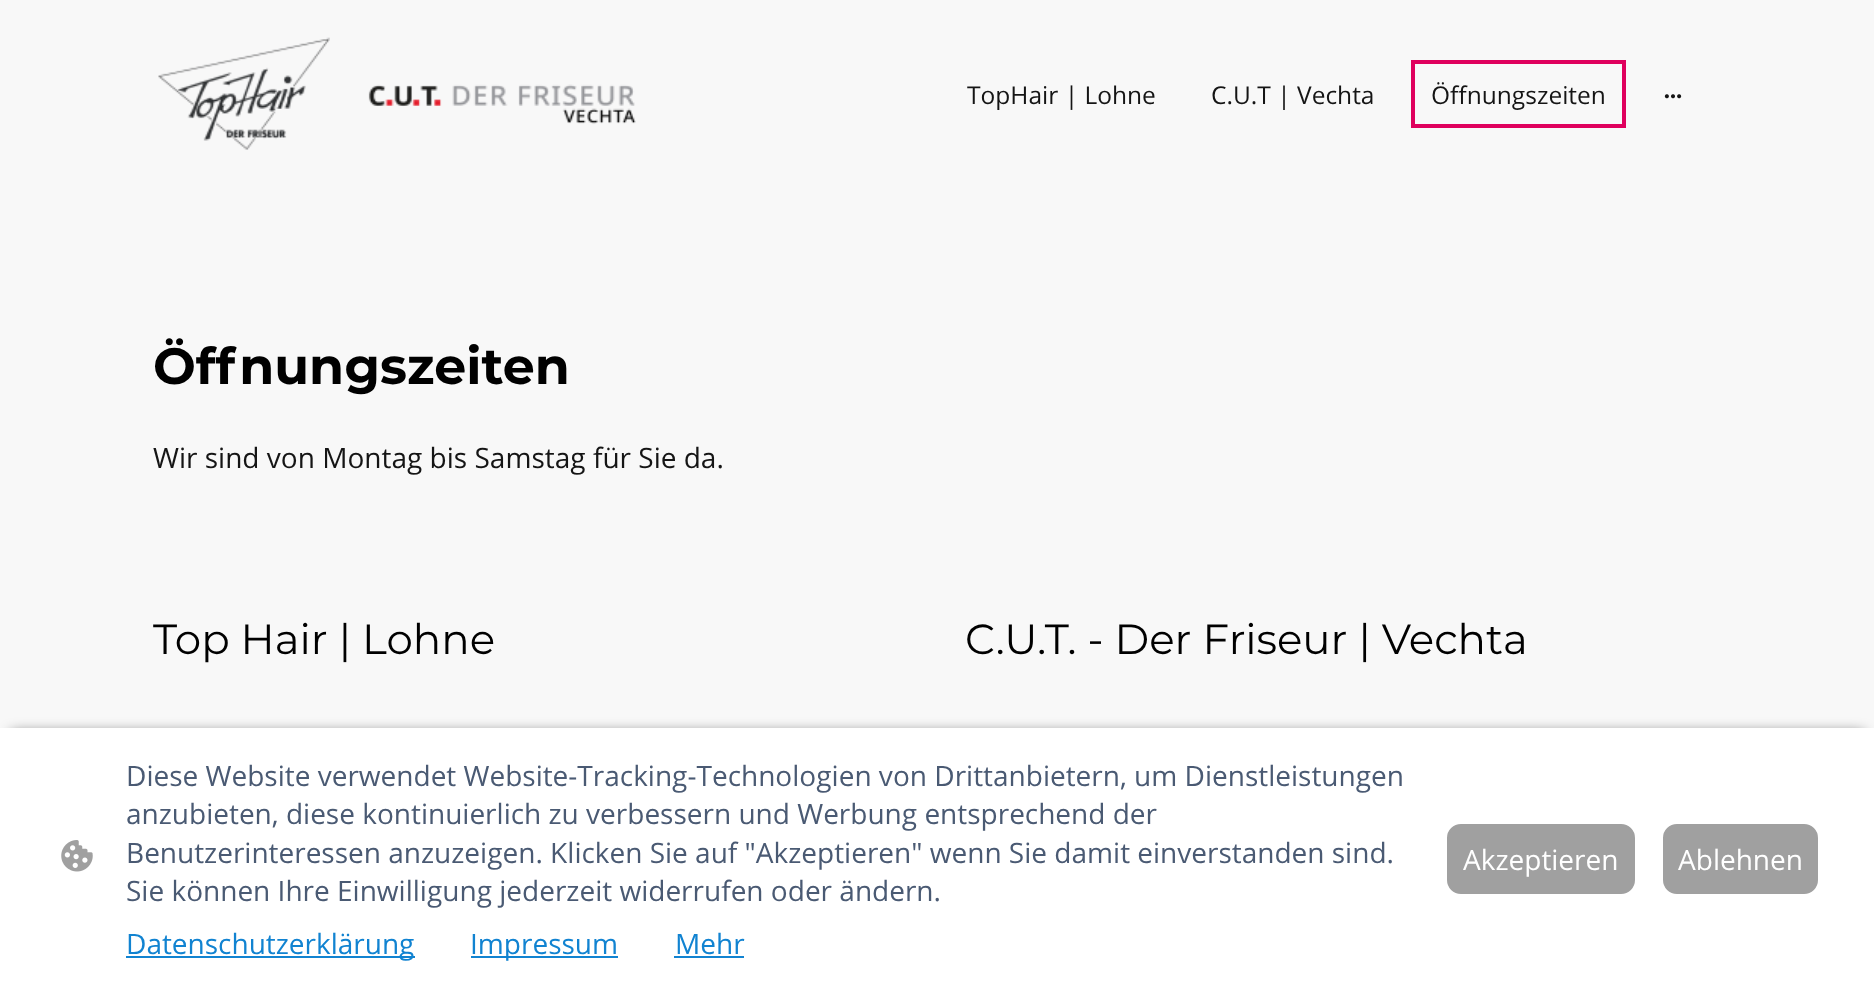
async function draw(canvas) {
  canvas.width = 1874
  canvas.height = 989
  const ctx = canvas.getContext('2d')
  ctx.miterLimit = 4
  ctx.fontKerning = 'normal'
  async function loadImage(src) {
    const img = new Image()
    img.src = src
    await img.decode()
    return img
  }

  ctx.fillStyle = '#f8f8f8'
  ctx.fillRect(0, 0, 1874, 989)
  ctx.drawImage(await loadImage('image0.png'), 158, 37, 478, 113)
  ctx.font = '24.5px Open Sans'
  ctx.fillStyle = '#151515'
  ctx.fillText('TopHair | Lohne', 967, 104)
  ctx.fillText('C.U.T | Vechta', 1211, 104)
  ctx.strokeStyle = '#df005d'
  ctx.lineWidth = 4
  ctx.strokeRect(1413, 62, 211, 64)
  ctx.fillText('Öffnungszeiten', 1431, 104)
  ctx.drawImage(await loadImage('image1.png'), 1664, 94, 18, 5)
  ctx.font = 'bold 50.75px Montserrat'
  ctx.fillStyle = '#000'
  ctx.fillText('Öffnungszeiten', 153, 384)
  ctx.font = '28px Open Sans'
  ctx.fillStyle = '#151515'
  ctx.fillText('Wir sind von Montag bis Samstag für Sie da.', 153, 468)
  ctx.font = '42px Montserrat'
  ctx.fillStyle = '#000'
  ctx.fillText('Top Hair | Lohne', 153, 654)
  ctx.fillText('C.U.T. - Der Friseur | Vechta', 965, 654)
  ctx.fillStyle = '#000000a1'
  ctx.filter = 'blur(7px)'
  ctx.beginPath()
  ctx.rect(11, 733, 1853, 242)
  ctx.fill()
  ctx.filter = 'none'
  ctx.fillStyle = '#fff'
  ctx.fillRect(0, 728, 1874, 261)
  ctx.drawImage(await loadImage('image2.png'), 61, 840, 32, 32)
  ctx.font = '28px Open Sans'
  ctx.fillStyle = '#4a5a73'
  ctx.fillText('Diese Website verwendet Website-Tracking-Technologien von Drittanbietern, um Dienstleistungen', 126, 786)
  ctx.fillText('anzubieten, diese kontinuierlich zu verbessern und Werbung entsprechend der', 126, 824)
  ctx.fillText('Benutzerinteressen anzuzeigen. Klicken Sie auf "Akzeptieren" wenn Sie damit einverstanden sind.', 126, 863)
  ctx.fillText('Sie können Ihre Einwilligung jederzeit widerrufen oder ändern.', 126, 901)
  ctx.fillStyle = '#1183d1'
  ctx.fillRect(126, 956, 289, 2)
  ctx.fillText('Datenschutzerklärung', 126, 954)
  ctx.fillRect(471, 956, 147, 2)
  ctx.fillText('Impressum', 470, 954)
  ctx.fillText('Mehr', 675, 954)
  ctx.fillRect(674, 956, 70, 2)
  ctx.fillStyle = '#a0a0a0'
  ctx.beginPath()
  ctx.roundRect(1448, 825, 186, 68, 13)
  ctx.fill()
  ctx.strokeStyle = '#a0a0a0'
  ctx.lineWidth = 2
  ctx.stroke()
  ctx.fillStyle = '#fff'
  ctx.fillText('Akzeptieren', 1463, 870)
  ctx.fillStyle = '#a0a0a0'
  ctx.beginPath()
  ctx.roundRect(1664, 825, 153, 68, 13)
  ctx.fill()
  ctx.stroke()
  ctx.fillStyle = '#fff'
  ctx.fillText('Ablehnen', 1678, 870)
}

draw(document.querySelector('canvas'))
